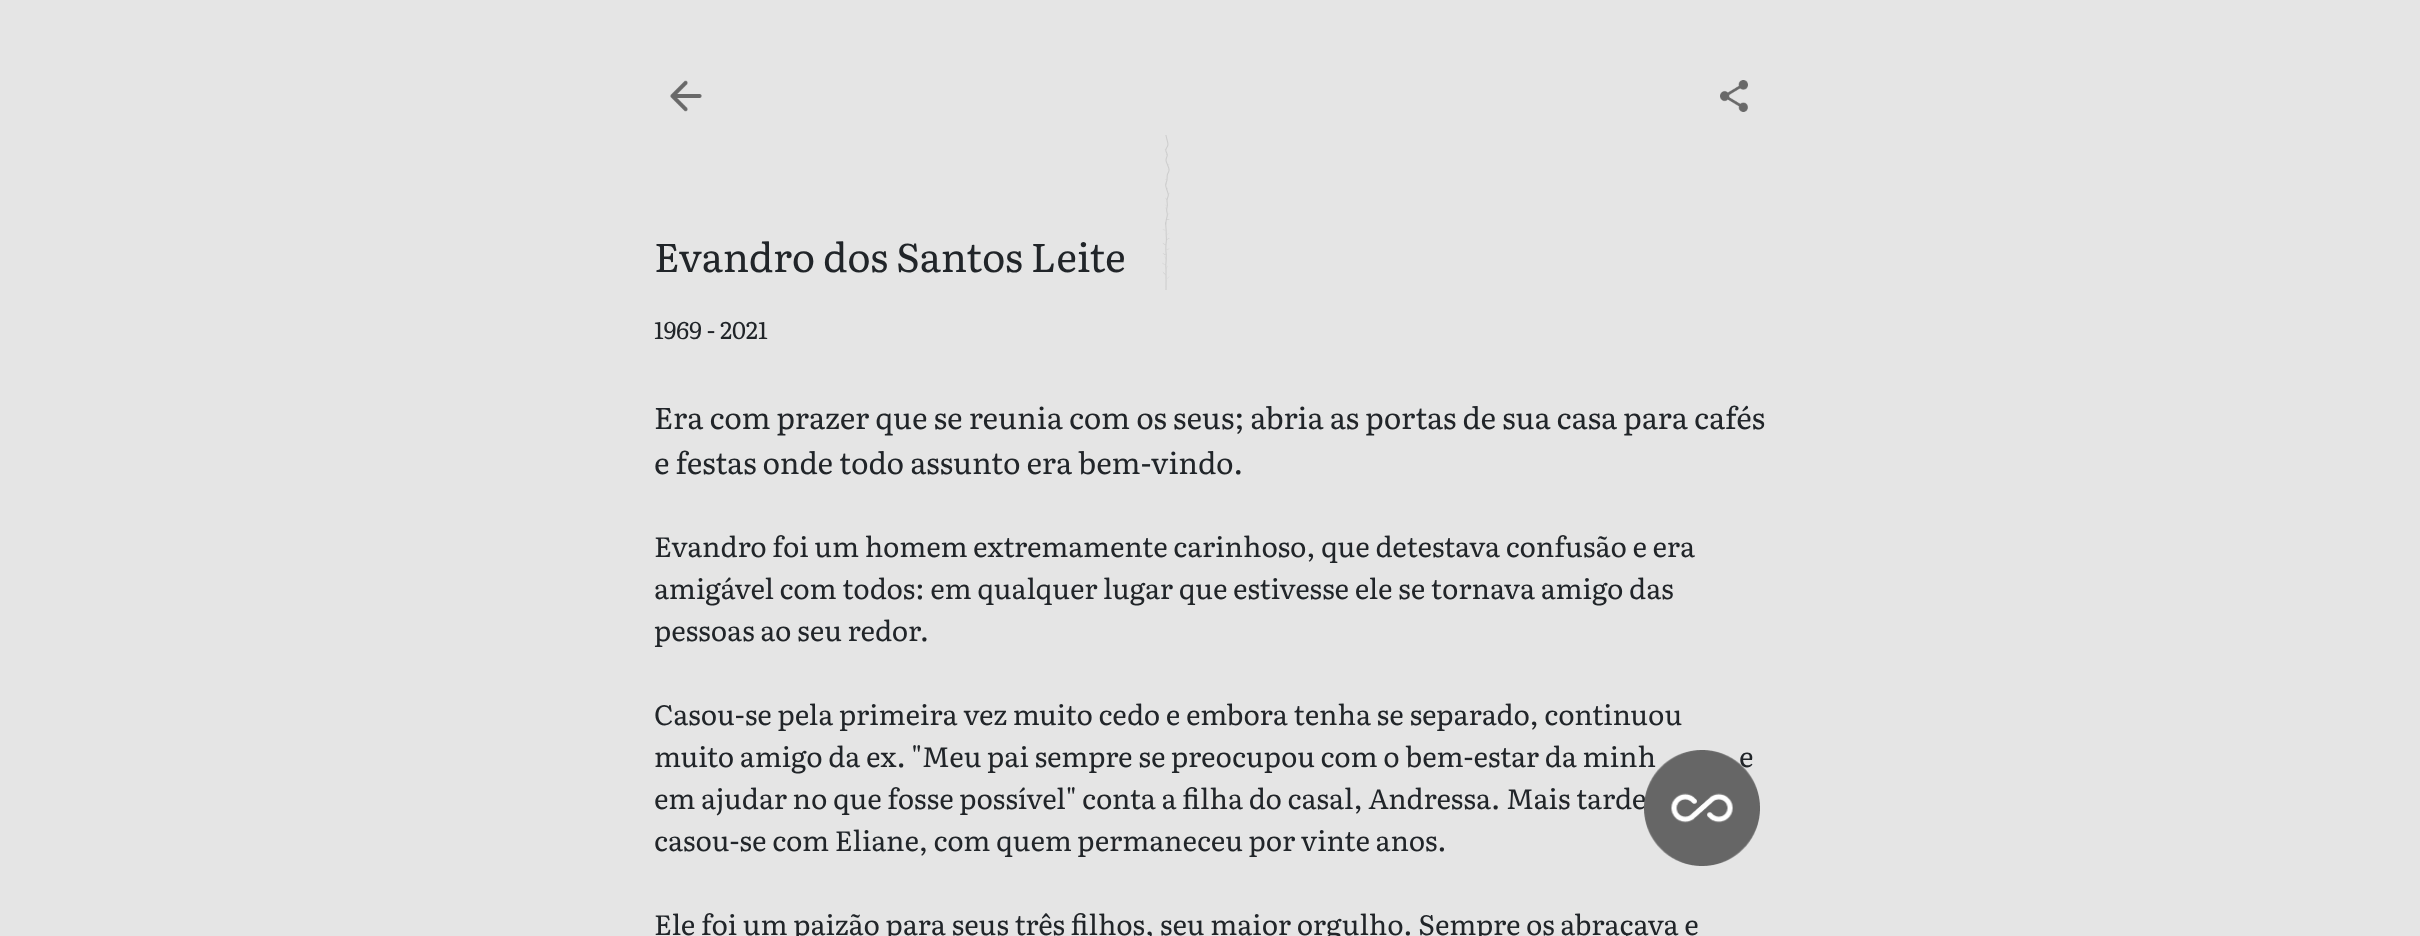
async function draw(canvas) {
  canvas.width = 2420
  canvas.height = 936
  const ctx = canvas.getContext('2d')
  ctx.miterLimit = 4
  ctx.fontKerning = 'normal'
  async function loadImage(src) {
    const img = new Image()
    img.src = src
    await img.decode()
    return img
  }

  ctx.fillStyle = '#e5e5e5'
  ctx.fillRect(0, 0, 2420, 936)
  ctx.drawImage(await loadImage('image0.png'), 670, 80, 32, 32)
  ctx.drawImage(await loadImage('image1.png'), 1720, 80, 28, 32)
  ctx.font = '40px Literata'
  ctx.fillStyle = '#212529'
  ctx.fillText('Evandro dos Santos Leite', 654, 272)
  ctx.drawImage(await loadImage('image2.png'), 1162, 135, 8, 155)
  ctx.font = '24px Literata'
  ctx.fillText('1969 - 2021', 654, 339)
  ctx.font = '30px Literata'
  ctx.fillText('Era com prazer que se reunia com os seus; abria as portas de sua casa para cafés', 654, 429)
  ctx.fillText('e festas onde todo assunto era bem-vindo.', 654, 474)
  ctx.font = '28px Literata'
  ctx.fillText('Evandro foi um homem extremamente carinhoso, que detestava confusão e era', 654, 557)
  ctx.fillText('amigável com todos: em qualquer lugar que estivesse ele se tornava amigo das', 654, 599)
  ctx.fillText('pessoas ao seu redor.', 654, 641)
  ctx.fillText('Casou-se pela primeira vez muito cedo e embora tenha se separado, continuou', 654, 725)
  ctx.fillText('muito amigo da ex. "Meu pai sempre se preocupou com o bem-estar da minh', 654, 767)
  ctx.fillText('e', 1739, 767)
  ctx.fillText('em ajudar no que fosse possível" conta a filha do casal, Andressa. Mais tarde', 654, 809)
  ctx.fillText('casou-se com Eliane, com quem permaneceu por vinte anos.', 654, 851)
  ctx.fillText('Ele foi um paizão para seus três filhos, seu maior orgulho. Sempre os abraçava e', 654, 935)
  ctx.drawImage(await loadImage('image3.png'), 1644, 750, 116, 116)
}

draw(document.querySelector('canvas'))
